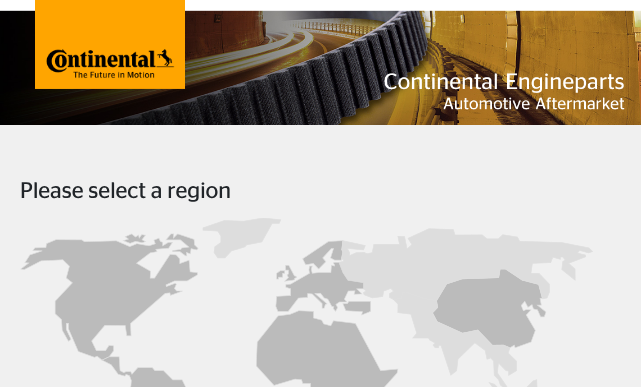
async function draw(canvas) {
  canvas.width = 641
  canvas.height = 387
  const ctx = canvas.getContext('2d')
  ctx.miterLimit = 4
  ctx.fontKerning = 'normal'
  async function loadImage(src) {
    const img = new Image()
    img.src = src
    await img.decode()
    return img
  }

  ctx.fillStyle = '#f0f0f0'
  ctx.fillRect(0, 0, 641, 387)
  ctx.drawImage(await loadImage('image0.png'), 0, 0, 641, 125)
  ctx.drawImage(await loadImage('image1.png'), 35, 0, 150, 89)
  ctx.font = '22.5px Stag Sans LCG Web'
  ctx.fillStyle = '#212529'
  ctx.fillText('Please select a region', 20, 198)
  ctx.drawImage(await loadImage('image2.png'), 20, 218, 573, 169)
}

draw(document.querySelector('canvas'))
